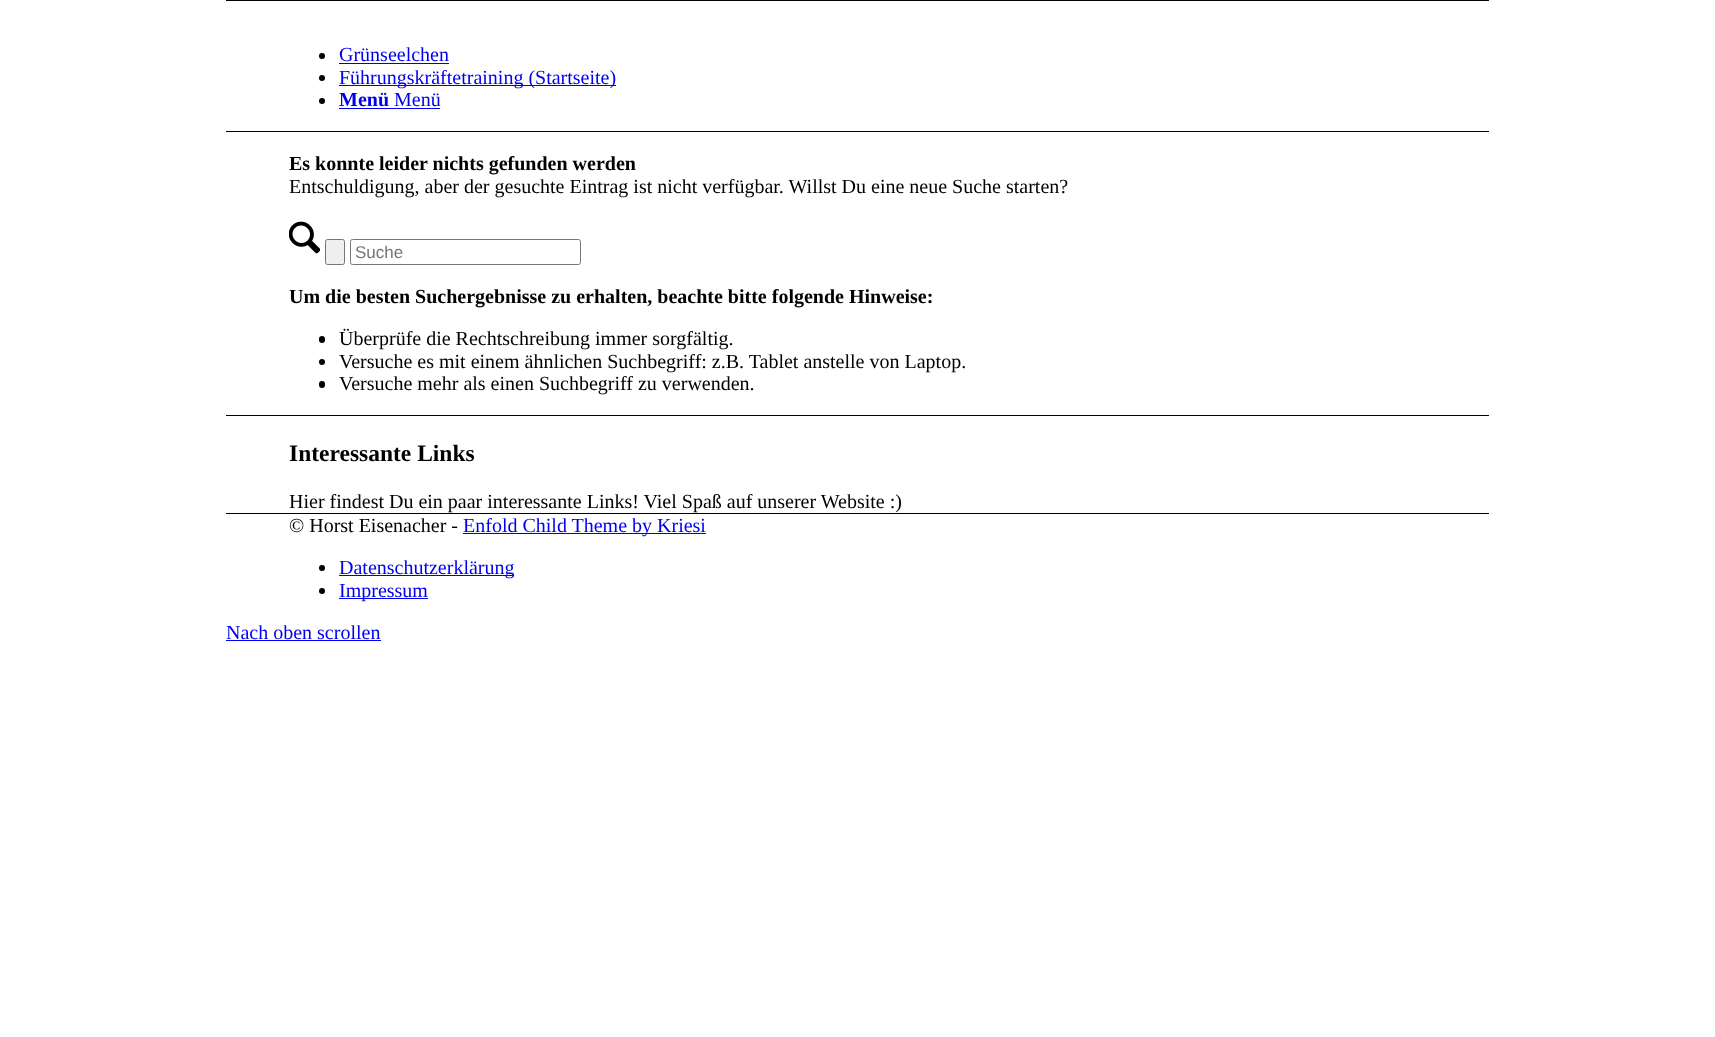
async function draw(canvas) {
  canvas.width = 1715
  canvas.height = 1037
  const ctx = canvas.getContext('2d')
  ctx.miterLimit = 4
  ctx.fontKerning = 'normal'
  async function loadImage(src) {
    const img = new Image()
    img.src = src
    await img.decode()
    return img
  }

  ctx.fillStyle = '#fff'
  ctx.fillRect(0, 0, 1715, 1037)
  ctx.fillStyle = '#000'
  ctx.fillRect(226, 0, 1263, 1)
  ctx.beginPath()
  ctx.arc(322, 56, 3, 0, 2 * Math.PI)
  ctx.fill()
  ctx.font = '20px Liberation Serif'
  ctx.fillStyle = '#00e'
  ctx.fillText('Grünseelchen', 339, 61)
  ctx.fillRect(339, 63, 110, 1)
  ctx.fillStyle = '#000'
  ctx.beginPath()
  ctx.arc(322, 78, 3, 0, 2 * Math.PI)
  ctx.fill()
  ctx.fillStyle = '#00e'
  ctx.fillRect(339, 85, 277, 1)
  ctx.fillText('Führungskräftetraining (Startseite)', 339, 84)
  ctx.fillStyle = '#000'
  ctx.beginPath()
  ctx.arc(322, 101, 3, 0, 2 * Math.PI)
  ctx.fill()
  ctx.font = 'bold 20px Liberation Serif'
  ctx.fillStyle = '#00e'
  ctx.fillText('Menü', 339, 106)
  ctx.fillRect(339, 108, 101, 1)
  ctx.font = '20px Liberation Serif'
  ctx.fillText('Menü', 394, 106)
  ctx.fillStyle = '#000'
  ctx.fillRect(226, 131, 1263, 1)
  ctx.font = 'bold 20px Liberation Serif'
  ctx.fillText('Es konnte leider nichts gefunden werden', 289, 170)
  ctx.font = '20px Liberation Serif'
  ctx.fillText('Entschuldigung, aber der gesuchte Eintrag ist nicht verfügbar. Willst Du eine neue Suche starten?', 289, 193)
  ctx.drawImage(await loadImage('image0.png'), 289, 221, 31, 33)
  ctx.fillStyle = '#efefef'
  ctx.beginPath()
  ctx.roundRect(325.5, 239.5, 19, 25, 2)
  ctx.fill()
  ctx.strokeStyle = '#767676'
  ctx.stroke()
  ctx.beginPath()
  ctx.roundRect(350.5, 239.5, 230, 25, 2)
  ctx.stroke()
  ctx.font = '17px Liberation Sans'
  ctx.fillStyle = '#757575'
  ctx.fillText('Suche', 355, 258)
  ctx.font = 'bold 20px Liberation Serif'
  ctx.fillStyle = '#000'
  ctx.fillText('Um die besten Suchergebnisse zu erhalten, beachte bitte folgende Hinweise:', 289, 303)
  ctx.beginPath()
  ctx.roundRect(319, 336, 6, 7, 3)
  ctx.fill()
  ctx.font = '20px Liberation Serif'
  ctx.fillText('Überprüfe die Rechtschreibung immer sorgfältig.', 339, 345)
  ctx.beginPath()
  ctx.arc(322, 362, 3, 0, 2 * Math.PI)
  ctx.fill()
  ctx.fillText('Versuche es mit einem ähnlichen Suchbegriff: z.B. Tablet anstelle von Laptop.', 339, 368)
  ctx.beginPath()
  ctx.roundRect(319, 381, 6, 7, 3)
  ctx.fill()
  ctx.fillText('Versuche mehr als einen Suchbegriff zu verwenden.', 339, 390)
  ctx.fillRect(226, 415, 1263, 1)
  ctx.font = 'bold 23.5px Liberation Serif'
  ctx.fillText('Interessante Links', 289, 461)
  ctx.font = '20px Liberation Serif'
  ctx.fillText('Hier findest Du ein paar interessante Links! Viel Spaß auf unserer Website :)', 289, 508)
  ctx.fillRect(226, 513, 1263, 1)
  ctx.fillText('© Horst Eisenacher -', 289, 532)
  ctx.fillStyle = '#00e'
  ctx.fillRect(463, 533, 243, 1)
  ctx.fillText('Enfold Child Theme by Kriesi', 463, 532)
  ctx.fillStyle = '#000'
  ctx.beginPath()
  ctx.arc(322, 568, 3, 0, 2 * Math.PI)
  ctx.fill()
  ctx.fillStyle = '#00e'
  ctx.fillRect(339, 575, 175, 1)
  ctx.fillText('Datenschutzerklärung', 339, 574)
  ctx.fillStyle = '#000'
  ctx.beginPath()
  ctx.arc(322, 591, 3, 0, 2 * Math.PI)
  ctx.fill()
  ctx.fillStyle = '#00e'
  ctx.fillRect(339, 598, 89, 1)
  ctx.fillText('Impressum', 339, 597)
  ctx.fillText('Nach oben scrollen', 226, 639)
  ctx.fillRect(226, 640, 155, 1)
}

draw(document.querySelector('canvas'))
